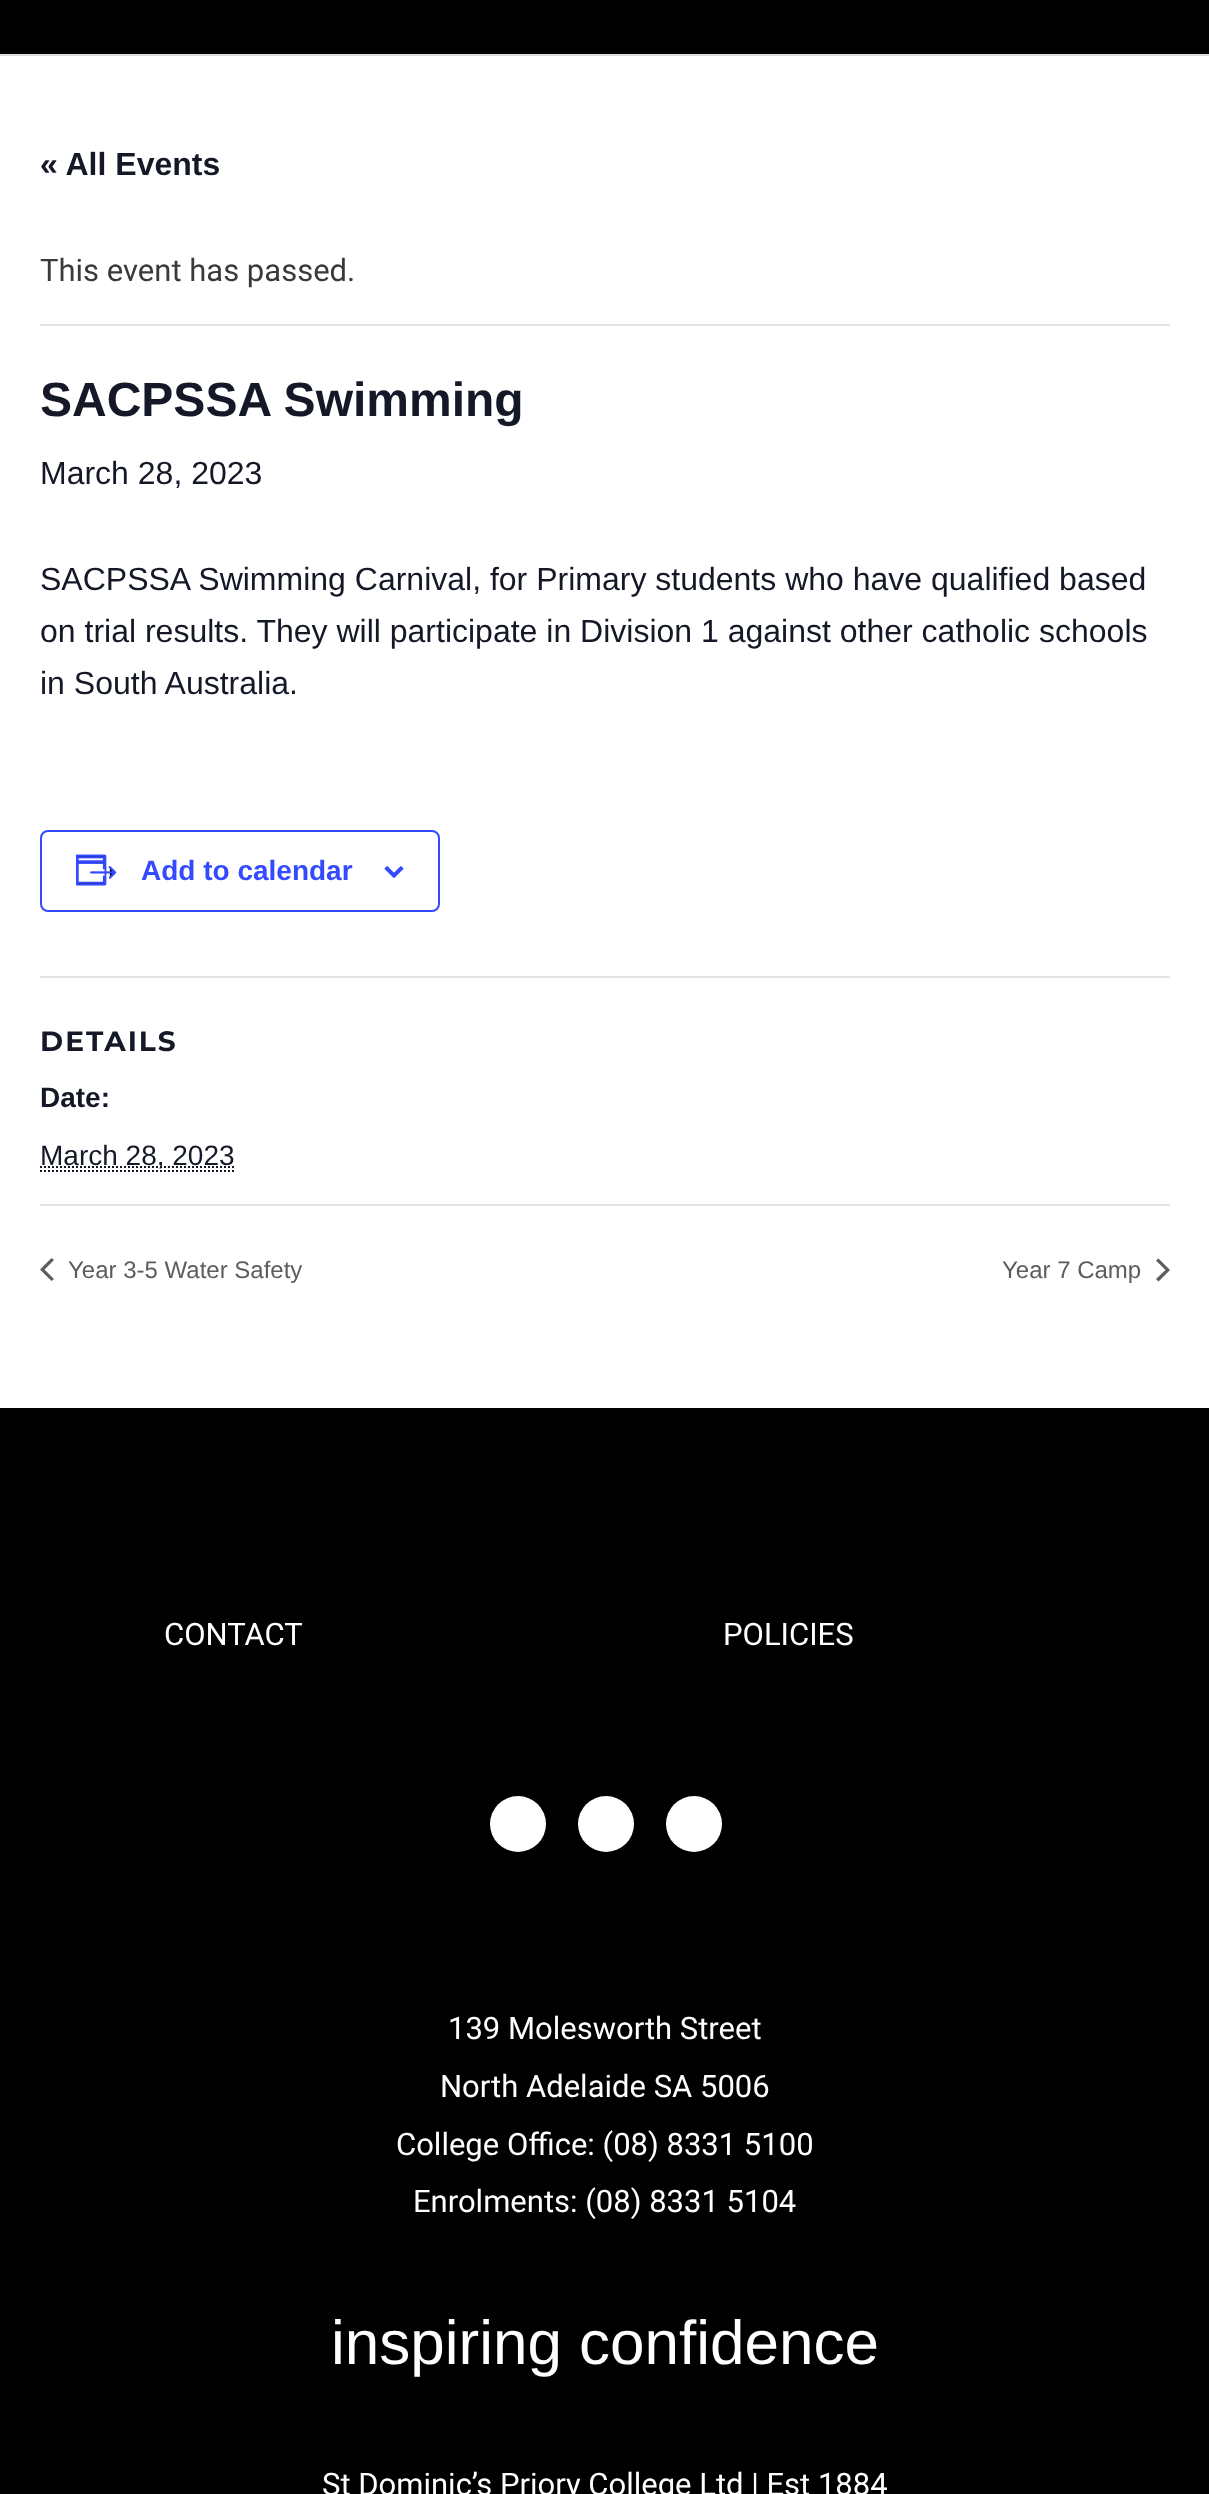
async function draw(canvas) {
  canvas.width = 1209
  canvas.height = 2494
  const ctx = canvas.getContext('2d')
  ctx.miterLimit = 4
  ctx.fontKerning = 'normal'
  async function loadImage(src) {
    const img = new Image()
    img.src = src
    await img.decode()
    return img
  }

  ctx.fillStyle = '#fff'
  ctx.fillRect(0, 0, 1209, 2494)
  ctx.fillStyle = '#000'
  ctx.fillRect(0, 0, 1209, 54)
  ctx.fillStyle = '#ddd'
  ctx.fillRect(0, 54, 1209, 2)
  ctx.font = 'bold 32px Liberation Sans'
  ctx.fillStyle = '#141827'
  ctx.fillText('« All Events', 40, 175)
  ctx.fillStyle = '#e4e4e4'
  ctx.fillRect(40, 324, 1130, 2)
  ctx.font = '31px Roboto'
  ctx.fillStyle = '#3a3a3a'
  ctx.fillText('This event has passed.', 40, 281)
  ctx.font = 'bold 48px Liberation Sans'
  ctx.fillStyle = '#141827'
  ctx.fillText('SACPSSA Swimming', 40, 416)
  ctx.font = '32px Liberation Sans'
  ctx.fillText('March 28, 2023', 40, 484)
  ctx.fillText('SACPSSA Swimming Carnival, for Primary students who have qualified based', 40, 590)
  ctx.fillText('on trial results. They will participate in Division 1 against other catholic schools', 40, 642)
  ctx.fillText('in South Australia.', 40, 694)
  ctx.beginPath()
  ctx.roundRect(41, 831, 398, 80, 7)
  ctx.strokeStyle = '#334aff'
  ctx.lineWidth = 2
  ctx.stroke()
  ctx.drawImage(await loadImage('image0.png'), 76, 854, 41, 32)
  ctx.font = 'bold 28px Liberation Sans'
  ctx.fillStyle = '#334aff'
  ctx.fillText('Add to calendar', 141, 880)
  ctx.drawImage(await loadImage('image1.png'), 384, 866, 20, 12)
  ctx.fillStyle = '#e4e4e4'
  ctx.fillRect(40, 976, 1130, 2)
  ctx.letterSpacing = '2px'
  ctx.font = 'bold 28px Montserrat'
  ctx.fillStyle = '#141827'
  ctx.fillText('DETAILS', 40, 1051)
  ctx.letterSpacing = '0px'
  ctx.font = 'bold 28px Liberation Sans'
  ctx.fillText('Date:', 40, 1107)
  ctx.beginPath()
  ctx.moveTo(40, 1167)
  ctx.lineTo(234.5, 1167)
  ctx.strokeStyle = '#141827'
  ctx.setLineDash([2, 2])
  ctx.stroke()
  ctx.font = '28px Liberation Sans'
  ctx.fillText('March 28, 2023', 40, 1165)
  ctx.beginPath()
  ctx.moveTo(40, 1171)
  ctx.lineTo(234, 1171)
  ctx.stroke()
  ctx.fillStyle = '#e4e4e4'
  ctx.fillRect(40, 1204, 1130, 2)
  ctx.fillStyle = '#5d5d5d'
  ctx.beginPath()
  ctx.moveTo(54, 1279)
  ctx.lineTo(51.5, 1281)
  ctx.lineTo(40, 1269.5)
  ctx.lineTo(51.5, 1258)
  ctx.lineTo(54, 1260)
  ctx.lineTo(44.5, 1269.5)
  ctx.closePath()
  ctx.fill()
  ctx.font = '24px Liberation Sans'
  ctx.fillText('Year 3-5 Water Safety', 68, 1278)
  ctx.fillText('Year 7 Camp', 1002, 1278)
  ctx.beginPath()
  ctx.moveTo(1156, 1260.5)
  ctx.lineTo(1158.5, 1258.5)
  ctx.lineTo(1170, 1270)
  ctx.lineTo(1158.5, 1281.5)
  ctx.lineTo(1156, 1279)
  ctx.lineTo(1165.5, 1270)
  ctx.closePath()
  ctx.fill()
  ctx.fillStyle = '#000'
  ctx.fillRect(0, 1408, 1209, 1086)
  ctx.font = '31px Roboto'
  ctx.fillStyle = '#fff'
  ctx.fillText('CONTACT', 164, 1645)
  ctx.fillText('POLICIES', 723, 1645)
  ctx.beginPath()
  ctx.arc(518, 1824, 28, 0, 2 * Math.PI)
  ctx.fill()
  ctx.beginPath()
  ctx.arc(606, 1824, 28, 0, 2 * Math.PI)
  ctx.fill()
  ctx.beginPath()
  ctx.arc(694, 1824, 28, 0, 2 * Math.PI)
  ctx.fill()
  ctx.fillText('139 Molesworth Street', 448, 2039)
  ctx.fillText('North Adelaide SA 5006', 440, 2097)
  ctx.fillText('College Office: (08) 8331 5100', 396, 2155)
  ctx.fillText('Enrolments: (08) 8331 5104', 413, 2212)
  ctx.font = '62px Liberation Sans'
  ctx.fillText('inspiring confidence', 331, 2364)
  ctx.font = '31px Roboto'
  ctx.fillText('St Dominic’s Priory College Ltd | Est 1884', 322, 2495)
}

draw(document.querySelector('canvas'))
